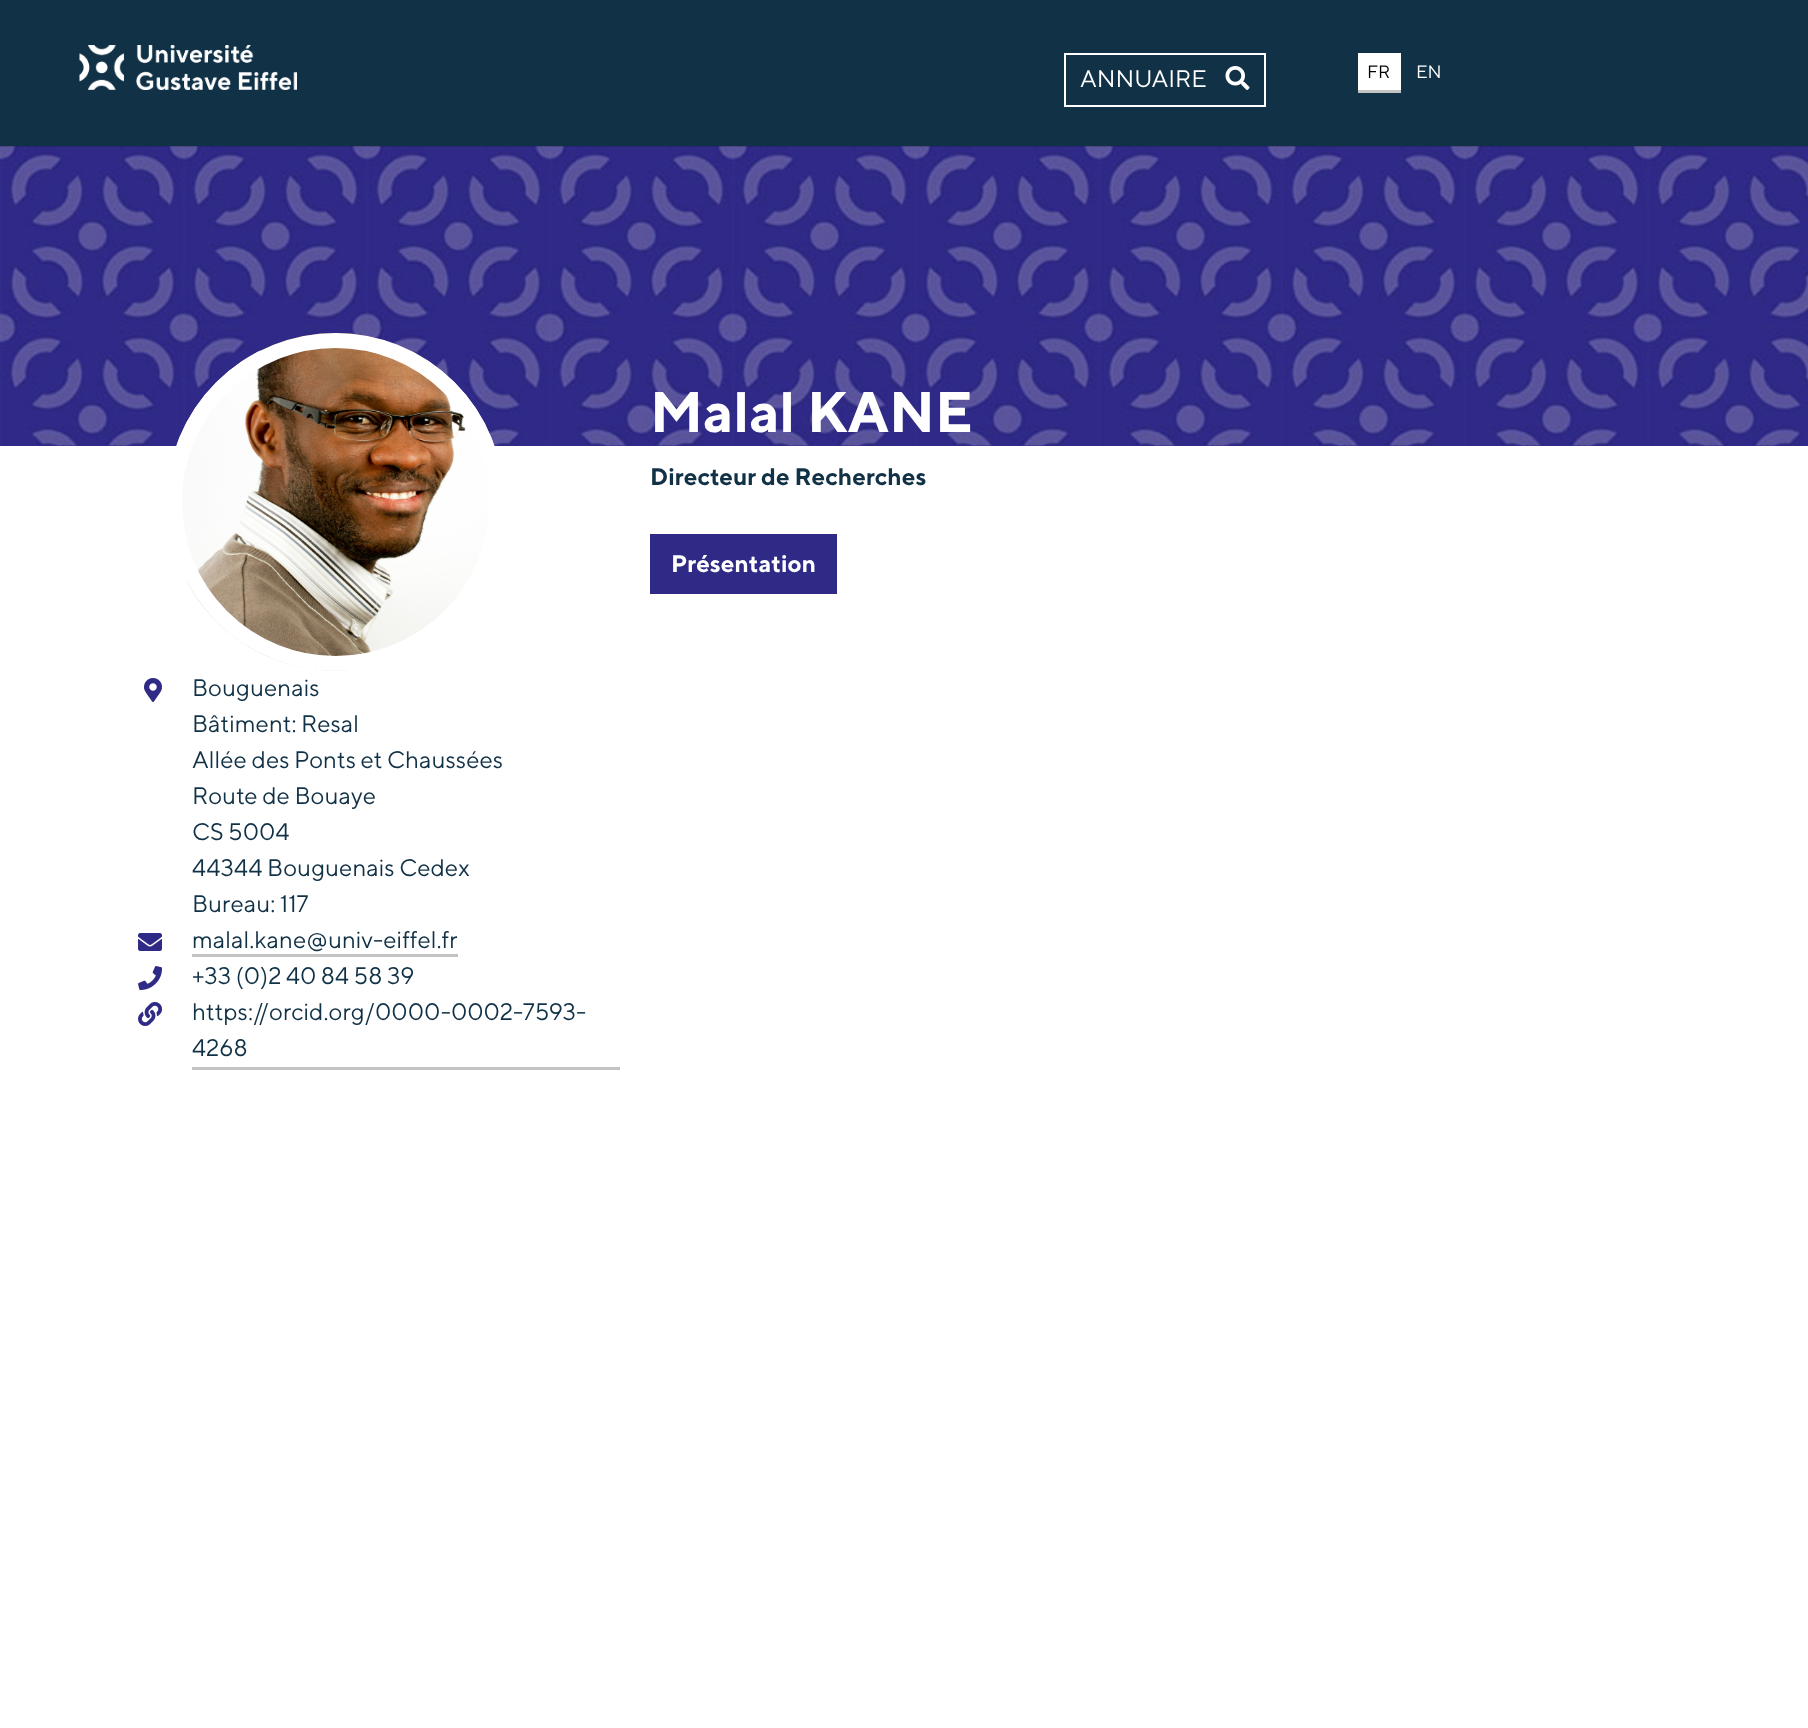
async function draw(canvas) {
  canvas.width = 1808
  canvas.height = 1728
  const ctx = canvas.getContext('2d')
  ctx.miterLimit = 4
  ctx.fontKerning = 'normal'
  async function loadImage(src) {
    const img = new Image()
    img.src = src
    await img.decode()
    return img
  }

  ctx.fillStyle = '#fff'
  ctx.fillRect(0, 0, 1808, 1728)
  ctx.fillStyle = '#2f2a85'
  ctx.fillRect(0, 445, 1808, 1)
  ctx.drawImage(await loadImage('image7.png'), 0, 146, 1808, 300)
  ctx.fillStyle = '#00000026'
  ctx.fillRect(0, 146, 1808, 1)
  ctx.fillStyle = '#113146'
  ctx.fillRect(0, 0, 1808, 146)
  ctx.drawImage(await loadImage('image0.png'), 79, 45, 218, 45)
  ctx.strokeStyle = '#fff'
  ctx.lineWidth = 2
  ctx.strokeRect(1065, 54, 200, 52)
  ctx.font = '24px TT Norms'
  ctx.fillStyle = '#fff'
  ctx.fillText('ANNUAIRE', 1080, 87)
  ctx.drawImage(await loadImage('image1.png'), 1225, 66, 25, 24)
  ctx.fillRect(1358, 53, 43, 37)
  ctx.font = '18px TT Norms'
  ctx.fillStyle = '#000'
  ctx.fillText('FR', 1367, 78)
  ctx.fillStyle = '#c3c3c3'
  ctx.fillRect(1358, 90, 43, 3)
  ctx.fillStyle = '#fff'
  ctx.fillText('EN', 1416, 78)
  ctx.font = 'bold 57px TT Norms'
  ctx.fillText('Malal KANE', 650, 432)
  ctx.font = 'bold 24px TT Norms'
  ctx.fillStyle = '#113146'
  ctx.fillText('Directeur de Recherches', 650, 485)
  ctx.fillStyle = '#2f2a85'
  ctx.fillRect(650, 534, 187, 60)
  ctx.fillStyle = '#fff'
  ctx.fillText('Présentation', 671, 572)
  ctx.drawImage(await loadImage('image2.png'), 176, 333, 328, 338)
  ctx.beginPath()
  ctx.roundRect(174.5, 340.5, 322, 323, 161)
  ctx.lineWidth = 15
  ctx.stroke()
  ctx.drawImage(await loadImage('image3.png'), 144, 678, 18, 24)
  ctx.font = '24px TT Norms'
  ctx.fillStyle = '#113146'
  ctx.fillText('Bouguenais', 192, 696)
  ctx.fillText('Bâtiment: Resal', 192, 732)
  ctx.fillText('Allée des Ponts et Chaussées', 192, 768)
  ctx.fillText('Route de Bouaye', 192, 804)
  ctx.fillText('CS 5004', 192, 840)
  ctx.fillText('44344 Bouguenais Cedex', 192, 876)
  ctx.fillText('Bureau: 117', 192, 912)
  ctx.drawImage(await loadImage('image4.png'), 138, 933, 24, 18)
  ctx.fillText('malal.kane@univ-eiffel.fr', 192, 948)
  ctx.fillStyle = '#c3c3c3'
  ctx.fillRect(192, 954, 266, 3)
  ctx.drawImage(await loadImage('image5.png'), 138, 966, 25, 24)
  ctx.fillStyle = '#113146'
  ctx.fillText('+33 (0)2 40 84 58 39', 192, 984)
  ctx.drawImage(await loadImage('image6.png'), 138, 1002, 24, 24)
  ctx.fillStyle = '#c3c3c3'
  ctx.fillRect(192, 1067, 428, 3)
  ctx.fillStyle = '#113146'
  ctx.fillText('https://orcid.org/0000-0002-7593-', 192, 1020)
  ctx.fillText('4268', 192, 1056)
}

draw(document.querySelector('canvas'))
